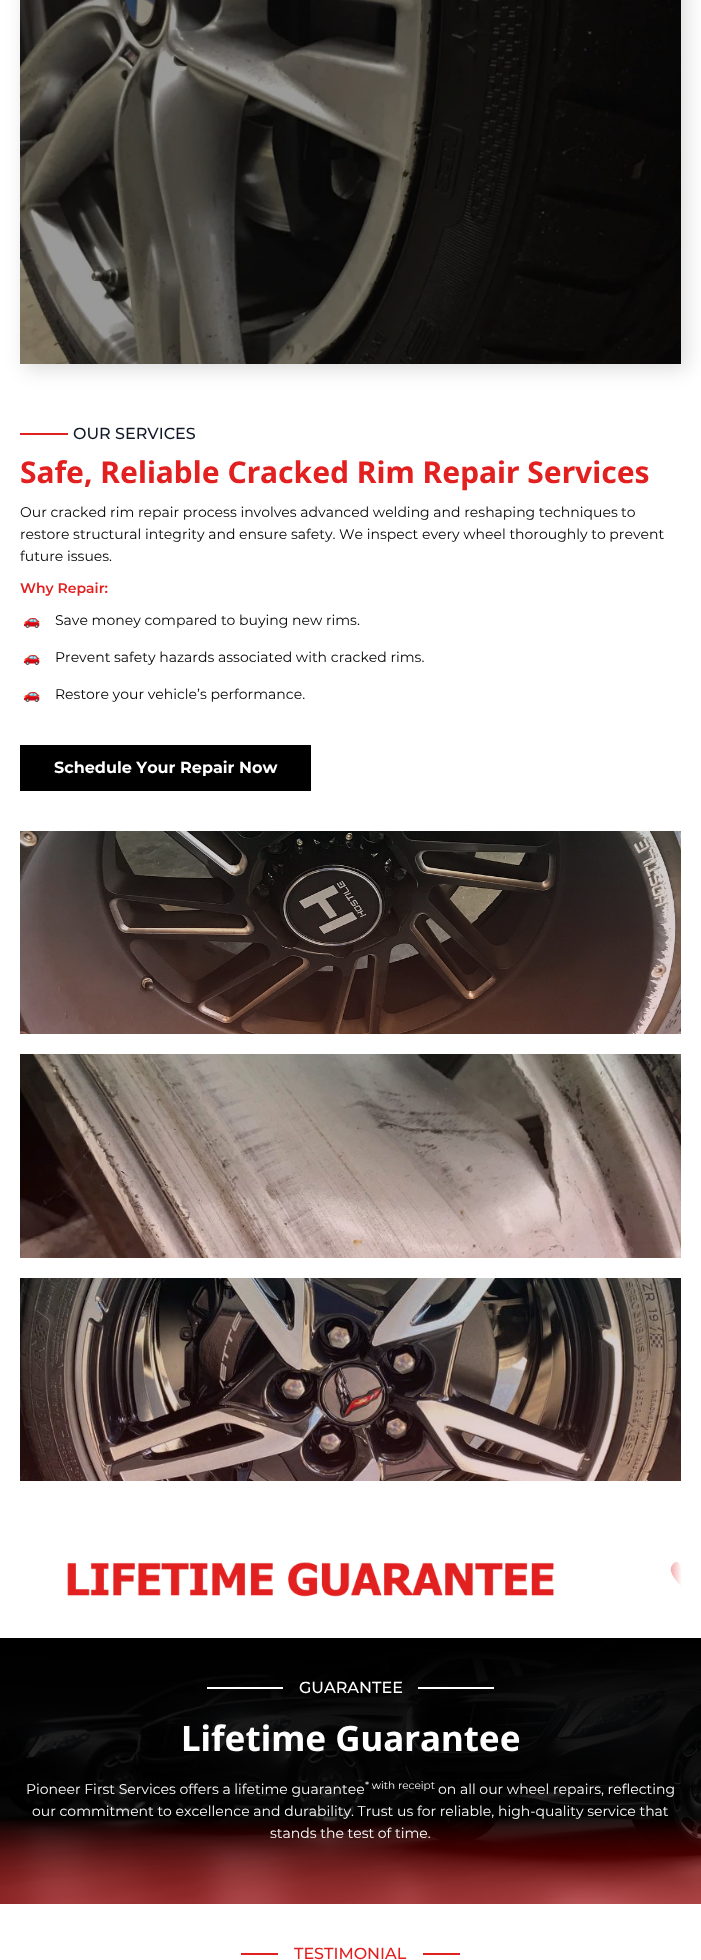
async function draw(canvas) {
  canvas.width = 701
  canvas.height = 1960
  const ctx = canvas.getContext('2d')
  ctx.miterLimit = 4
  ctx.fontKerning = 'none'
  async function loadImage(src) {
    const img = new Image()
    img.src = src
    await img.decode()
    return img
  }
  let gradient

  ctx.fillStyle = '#fff'
  ctx.fillRect(0, 0, 701, 1960)
  ctx.fillStyle = '#00000024'
  ctx.filter = 'blur(10px)'
  ctx.beginPath()
  ctx.rect(25, -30, 661, 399)
  ctx.fill()
  ctx.filter = 'none'
  ctx.drawImage(await loadImage('image0.png'), 20, 0, 661, 364)
  ctx.fillStyle = '#e22020'
  ctx.fillRect(20, 433, 48, 2)
  ctx.font = '500 16px Montserrat'
  ctx.fillStyle = '#111827'
  ctx.fillText('OUR SERVICES', 73, 439)
  ctx.font = 'bold 30px Noto Sans'
  ctx.fillStyle = '#e22020'
  ctx.fillText('Safe, Reliable Cracked Rim Repair Services', 20, 483)
  ctx.font = '14px Montserrat'
  ctx.fillStyle = '#000'
  ctx.fillText('Our cracked rim repair process involves advanced welding and reshaping techniques', 20, 517)
  ctx.fillText('to', 621, 517)
  ctx.fillText('restore structural integrity and ensure safety.', 20, 539)
  ctx.fillText('We inspect every wheel thoroughly to prevent', 339, 539)
  ctx.fillText('future issues.', 20, 561)
  ctx.font = '600 14px Montserrat'
  ctx.fillStyle = '#e22020'
  ctx.fillText('Why Repair:', 20, 593)
  ctx.font = '14px Noto Color Emoji'
  ctx.fillStyle = '#5319ce'
  ctx.fillText('🚗', 23, 625)
  ctx.font = '14px Montserrat'
  ctx.fillStyle = '#000'
  ctx.fillText('Save money compared to buying new rims.', 55, 625)
  ctx.font = '14px Noto Color Emoji'
  ctx.fillStyle = '#5319ce'
  ctx.fillText('🚗', 23, 662)
  ctx.font = '14px Montserrat'
  ctx.fillStyle = '#000'
  ctx.fillText('Prevent safety hazards associated with cracked rims.', 55, 662)
  ctx.font = '14px Noto Color Emoji'
  ctx.fillStyle = '#5319ce'
  ctx.fillText('🚗', 23, 699)
  ctx.font = '14px Montserrat'
  ctx.fillStyle = '#000'
  ctx.fillText('Restore your vehicle’s performance.', 55, 699)
  ctx.fillRect(20, 745, 291, 46)
  ctx.font = 'bold 16px Montserrat'
  ctx.fillStyle = '#fff'
  ctx.fillText('Schedule Your Repair Now', 54, 773)
  ctx.drawImage(await loadImage('image1.png'), 20, 831, 661, 203)
  ctx.drawImage(await loadImage('image2.png'), 20, 1054, 661, 204)
  ctx.drawImage(await loadImage('image3.png'), 20, 1278, 661, 203)
  ctx.drawImage(await loadImage('image4.png'), 67, 1562, 487, 35)
  ctx.drawImage(await loadImage('image5.png'), 670, 1561, 11, 25)
  gradient = ctx.createLinearGradient(652, 1580, 682, 1580)
  gradient.addColorStop(0, '#ffffff00')
  gradient.addColorStop(1, '#fff')
  ctx.fillStyle = gradient
  ctx.fillRect(670, 1561, 11, 25)
  ctx.drawImage(await loadImage('image6.png'), 0, 1638, 701, 266)
  ctx.fillStyle = '#fff'
  ctx.fillRect(207, 1687, 76, 2)
  ctx.font = '500 16px Montserrat'
  ctx.fillText('GUARANTEE', 299, 1693)
  ctx.fillRect(418, 1687, 76, 2)
  ctx.font = 'bold 35px Noto Sans'
  ctx.fillText('Lifetime Guarantee', 181, 1751)
  ctx.font = '14px Montserrat'
  ctx.fillText('Pioneer First Services offers a lifetime guarantee', 26, 1794)
  ctx.font = '10.5px Montserrat'
  ctx.fillText('* with receipt', 365, 1789)
  ctx.font = '14px Montserrat'
  ctx.fillText('on all our wheel repairs, reflecting', 438, 1794)
  ctx.fillText('our commitment to excellence and durability. Trust', 32, 1816)
  ctx.fillText('us for reliable, high-quality service that', 397, 1816)
  ctx.fillText('stands the test of time.', 270, 1838)
  ctx.fillStyle = '#e22020'
  ctx.fillRect(241, 1953, 37, 2)
  ctx.font = '500 16px Montserrat'
  ctx.fillText('TESTIMONIAL', 294, 1959)
  ctx.fillRect(423, 1953, 37, 2)
}

draw(document.querySelector('canvas'))
